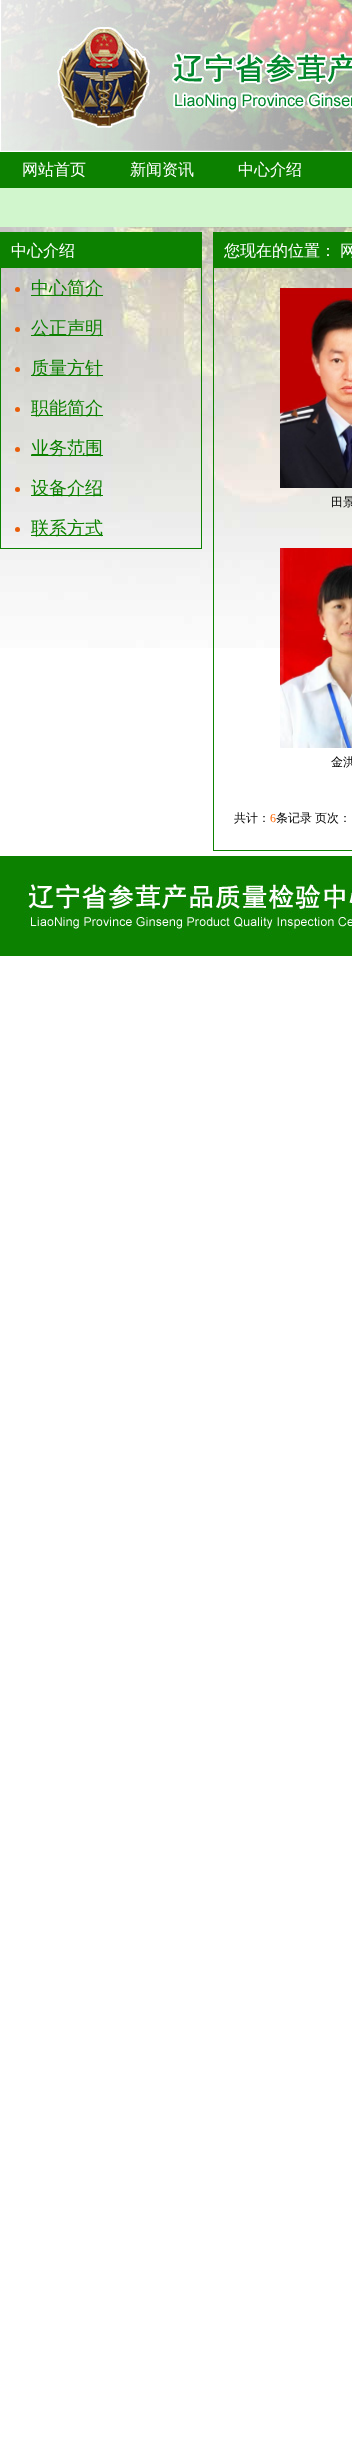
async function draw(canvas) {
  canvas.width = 352
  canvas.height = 2463
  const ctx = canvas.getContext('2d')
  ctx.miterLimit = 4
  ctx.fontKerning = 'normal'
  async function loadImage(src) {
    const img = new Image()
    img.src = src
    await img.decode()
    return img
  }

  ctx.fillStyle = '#fff'
  ctx.fillRect(0, 0, 352, 2463)
  ctx.drawImage(await loadImage('image0.png'), 0, 227, 352, 421)
  ctx.drawImage(await loadImage('image1.png'), 0, 0, 352, 151)
  ctx.fillStyle = '#d1f6cd'
  ctx.fillRect(0, 188, 352, 39)
  ctx.fillStyle = '#0c8100'
  ctx.fillRect(0, 152, 352, 36)
  ctx.font = '500 16px WenQuanYi Zen Hei'
  ctx.fillStyle = '#fff'
  ctx.fillText('网站首页', 22, 175)
  ctx.fillText('新闻资讯', 130, 175)
  ctx.fillText('中心介绍', 238, 175)
  ctx.strokeStyle = '#0c8100'
  ctx.strokeRect(0.5, 232.5, 201, 316)
  ctx.fillStyle = '#0c8100'
  ctx.fillRect(1, 233, 200, 35)
  ctx.fillStyle = '#fff'
  ctx.fillText('中心介绍', 11, 256)
  ctx.fillStyle = '#e95d08'
  ctx.beginPath()
  ctx.arc(17.5, 289.5, 2.5, 0, 2 * Math.PI)
  ctx.fill()
  ctx.fillStyle = '#0c8100'
  ctx.fillRect(31, 295, 72, 1)
  ctx.font = '500 18px WenQuanYi Zen Hei'
  ctx.fillText('中心简介', 31, 294)
  ctx.fillStyle = '#e95d08'
  ctx.beginPath()
  ctx.arc(17.5, 329.5, 2.5, 0, 2 * Math.PI)
  ctx.fill()
  ctx.fillStyle = '#0c8100'
  ctx.fillRect(31, 335, 72, 1)
  ctx.fillText('公正声明', 31, 334)
  ctx.fillStyle = '#e95d08'
  ctx.beginPath()
  ctx.arc(17.5, 369.5, 2.5, 0, 2 * Math.PI)
  ctx.fill()
  ctx.fillStyle = '#0c8100'
  ctx.fillRect(31, 375, 72, 1)
  ctx.fillText('质量方针', 31, 374)
  ctx.fillStyle = '#e95d08'
  ctx.beginPath()
  ctx.arc(17.5, 409.5, 2.5, 0, 2 * Math.PI)
  ctx.fill()
  ctx.fillStyle = '#0c8100'
  ctx.fillRect(31, 415, 72, 1)
  ctx.fillText('职能简介', 31, 414)
  ctx.fillStyle = '#e95d08'
  ctx.beginPath()
  ctx.arc(17.5, 449.5, 2.5, 0, 2 * Math.PI)
  ctx.fill()
  ctx.fillStyle = '#0c8100'
  ctx.fillRect(31, 455, 72, 1)
  ctx.fillText('业务范围', 31, 454)
  ctx.fillStyle = '#e95d08'
  ctx.beginPath()
  ctx.arc(17.5, 489.5, 2.5, 0, 2 * Math.PI)
  ctx.fill()
  ctx.fillStyle = '#0c8100'
  ctx.fillRect(31, 495, 72, 1)
  ctx.fillText('设备介绍', 31, 494)
  ctx.fillStyle = '#e95d08'
  ctx.beginPath()
  ctx.arc(17.5, 529.5, 2.5, 0, 2 * Math.PI)
  ctx.fill()
  ctx.fillStyle = '#0c8100'
  ctx.fillRect(31, 535, 72, 1)
  ctx.fillText('联系方式', 31, 534)
  ctx.strokeRect(213.5, 232.5, 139, 618)
  ctx.fillRect(214, 233, 138, 35)
  ctx.font = '500 16px WenQuanYi Zen Hei'
  ctx.fillStyle = '#fff'
  ctx.fillText('您现在的位置：', 224, 256)
  ctx.fillText('网', 340, 256)
  ctx.drawImage(await loadImage('image2.png'), 280, 288, 72, 200)
  ctx.font = '500 12px WenQuanYi Zen Hei'
  ctx.fillStyle = '#000'
  ctx.fillText('田景', 331, 506)
  ctx.drawImage(await loadImage('image3.png'), 280, 548, 72, 200)
  ctx.fillText('金洪', 331, 766)
  ctx.fillText('共计：', 234, 822)
  ctx.font = '12px Liberation Serif'
  ctx.fillStyle = '#f60'
  ctx.fillText('6', 270, 822)
  ctx.font = '500 12px WenQuanYi Zen Hei'
  ctx.fillStyle = '#000'
  ctx.fillText('条记录', 276, 822)
  ctx.fillText('页次：', 315, 822)
  ctx.drawImage(await loadImage('image4.png'), 0, 856, 352, 100)
}

draw(document.querySelector('canvas'))
